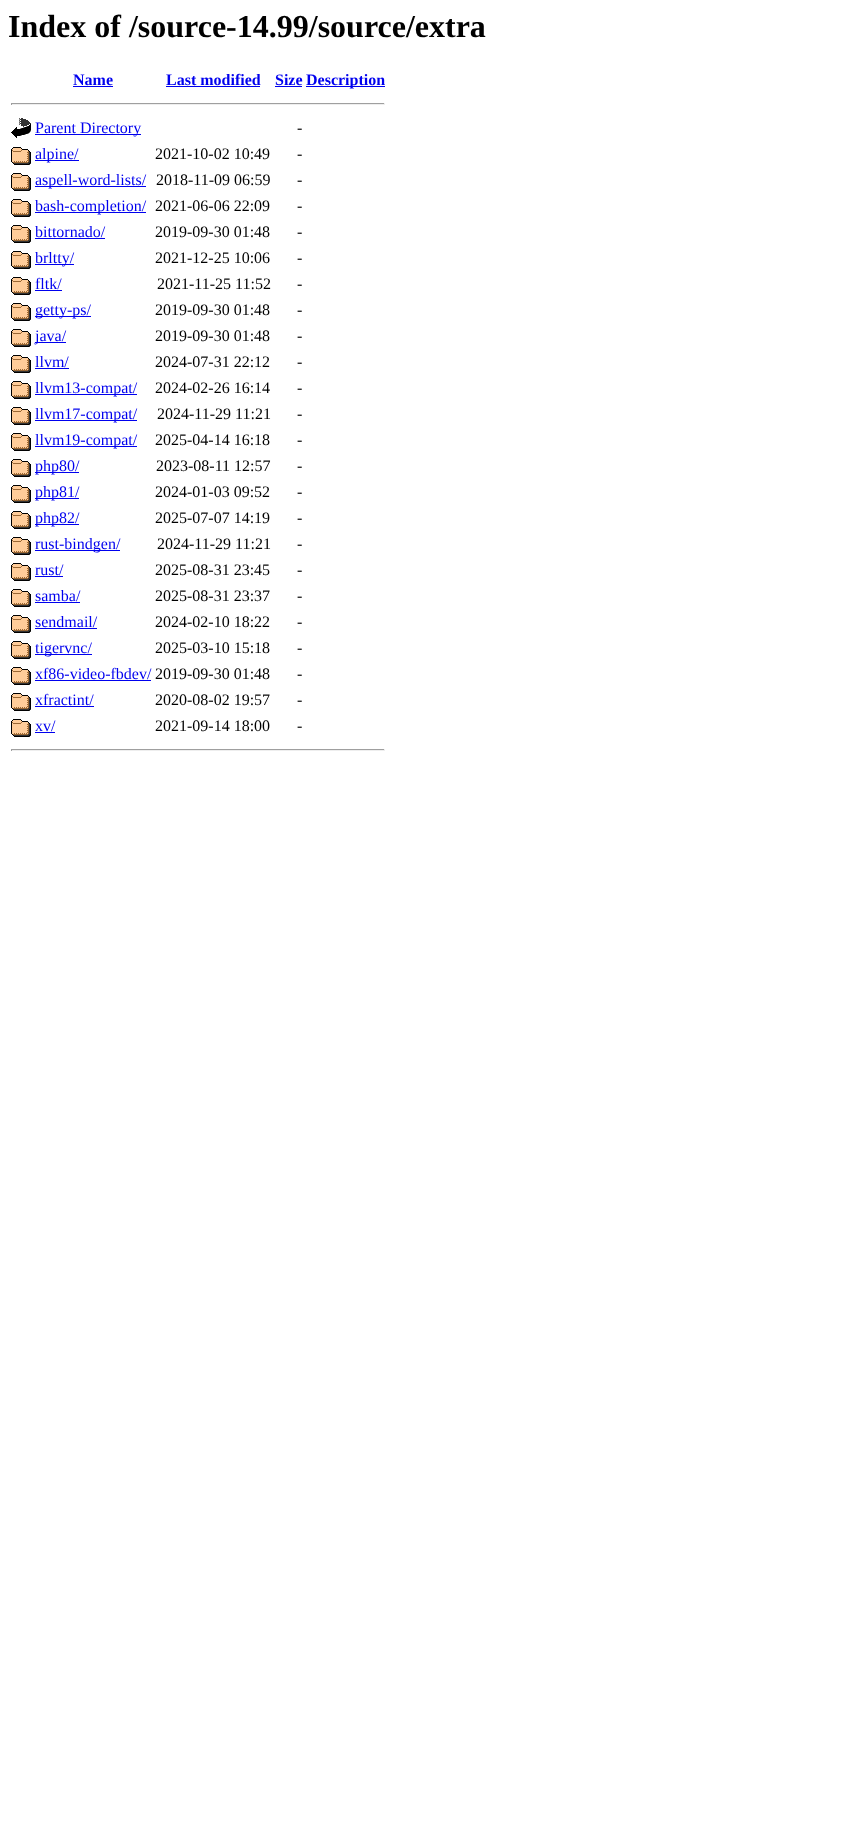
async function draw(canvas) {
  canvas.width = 845
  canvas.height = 1837
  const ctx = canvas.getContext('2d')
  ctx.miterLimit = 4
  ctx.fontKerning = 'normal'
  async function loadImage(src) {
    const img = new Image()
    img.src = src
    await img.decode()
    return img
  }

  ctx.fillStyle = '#fff'
  ctx.fillRect(0, 0, 845, 1837)
  ctx.font = 'bold 32px Liberation Serif'
  ctx.fillStyle = '#000'
  ctx.fillText('Index of /source-14.99/source/extra', 8, 37)
  ctx.font = 'bold 16px Liberation Serif'
  ctx.fillStyle = '#00e'
  ctx.fillText('Name', 73, 85)
  ctx.fillRect(73, 86, 40, 1)
  ctx.fillText('Last modified', 166, 85)
  ctx.fillRect(166, 86, 94, 1)
  ctx.fillText('Size', 275, 85)
  ctx.fillRect(275, 86, 27, 1)
  ctx.fillRect(306, 86, 79, 1)
  ctx.fillText('Description', 306, 85)
  ctx.fillStyle = '#9f9f9f'
  ctx.fillRect(11, 103, 374, 1)
  ctx.fillStyle = '#eee'
  ctx.fillRect(384, 103, 1, 2)
  ctx.fillRect(11, 104, 374, 1)
  ctx.fillStyle = '#9f9f9f'
  ctx.fillRect(11, 103, 1, 2)
  ctx.drawImage(await loadImage('image0.png'), 11, 118, 20, 20)
  ctx.fillStyle = '#00e'
  ctx.fillRect(35, 134, 106, 1)
  ctx.font = '16px Liberation Serif'
  ctx.fillText('Parent Directory', 35, 133)
  ctx.fillStyle = '#000'
  ctx.fillText('-', 297, 133)
  ctx.drawImage(await loadImage('image1.png'), 11, 147, 20, 18)
  ctx.fillStyle = '#00e'
  ctx.fillRect(35, 160, 44, 1)
  ctx.fillText('alpine/', 35, 159)
  ctx.fillStyle = '#000'
  ctx.fillText('2021-10-02 10:49', 155, 159)
  ctx.fillText('-', 297, 159)
  ctx.drawImage(await loadImage('image1.png'), 11, 173, 20, 18)
  ctx.fillStyle = '#00e'
  ctx.fillRect(35, 186, 111, 1)
  ctx.fillText('aspell-word-lists/', 35, 185)
  ctx.fillStyle = '#000'
  ctx.fillText('2018-11-09 06:59', 156, 185)
  ctx.fillText('-', 297, 185)
  ctx.drawImage(await loadImage('image1.png'), 11, 199, 20, 18)
  ctx.fillStyle = '#00e'
  ctx.fillRect(35, 212, 111, 1)
  ctx.fillText('bash-completion/', 35, 211)
  ctx.fillStyle = '#000'
  ctx.fillText('2021-06-06 22:09', 155, 211)
  ctx.fillText('-', 297, 211)
  ctx.drawImage(await loadImage('image1.png'), 11, 225, 20, 18)
  ctx.fillStyle = '#00e'
  ctx.fillText('bittornado/', 35, 237)
  ctx.fillRect(35, 238, 70, 1)
  ctx.fillStyle = '#000'
  ctx.fillText('2019-09-30 01:48', 155, 237)
  ctx.fillText('-', 297, 237)
  ctx.drawImage(await loadImage('image1.png'), 11, 251, 20, 18)
  ctx.fillStyle = '#00e'
  ctx.fillRect(35, 264, 39, 1)
  ctx.fillText('brltty/', 35, 263)
  ctx.fillStyle = '#000'
  ctx.fillText('2021-12-25 10:06', 155, 263)
  ctx.fillText('-', 297, 263)
  ctx.drawImage(await loadImage('image1.png'), 11, 277, 20, 18)
  ctx.fillStyle = '#00e'
  ctx.fillText('fltk/', 35, 289)
  ctx.fillRect(35, 290, 27, 1)
  ctx.fillStyle = '#000'
  ctx.fillText('2021-11-25 11:52', 157, 289)
  ctx.fillText('-', 297, 289)
  ctx.drawImage(await loadImage('image1.png'), 11, 303, 20, 18)
  ctx.fillStyle = '#00e'
  ctx.fillRect(35, 316, 56, 1)
  ctx.fillText('getty-ps/', 35, 315)
  ctx.fillStyle = '#000'
  ctx.fillText('2019-09-30 01:48', 155, 315)
  ctx.fillText('-', 297, 315)
  ctx.drawImage(await loadImage('image1.png'), 11, 329, 20, 18)
  ctx.fillStyle = '#00e'
  ctx.fillRect(35, 342, 31, 1)
  ctx.fillText('java/', 35, 341)
  ctx.fillStyle = '#000'
  ctx.fillText('2019-09-30 01:48', 155, 341)
  ctx.fillText('-', 297, 341)
  ctx.drawImage(await loadImage('image1.png'), 11, 355, 20, 18)
  ctx.fillStyle = '#00e'
  ctx.fillText('llvm/', 35, 367)
  ctx.fillRect(35, 368, 34, 1)
  ctx.fillStyle = '#000'
  ctx.fillText('2024-07-31 22:12', 155, 367)
  ctx.fillText('-', 297, 367)
  ctx.drawImage(await loadImage('image1.png'), 11, 381, 20, 18)
  ctx.fillStyle = '#00e'
  ctx.fillRect(35, 394, 102, 1)
  ctx.fillText('llvm13-compat/', 35, 393)
  ctx.fillStyle = '#000'
  ctx.fillText('2024-02-26 16:14', 155, 393)
  ctx.fillText('-', 297, 393)
  ctx.drawImage(await loadImage('image1.png'), 11, 407, 20, 18)
  ctx.fillStyle = '#00e'
  ctx.fillRect(35, 420, 102, 1)
  ctx.fillText('llvm17-compat/', 35, 419)
  ctx.fillStyle = '#000'
  ctx.fillText('2024-11-29 11:21', 157, 419)
  ctx.fillText('-', 297, 419)
  ctx.drawImage(await loadImage('image1.png'), 11, 433, 20, 18)
  ctx.fillStyle = '#00e'
  ctx.fillRect(35, 446, 102, 1)
  ctx.fillText('llvm19-compat/', 35, 445)
  ctx.fillStyle = '#000'
  ctx.fillText('2025-04-14 16:18', 155, 445)
  ctx.fillText('-', 297, 445)
  ctx.drawImage(await loadImage('image1.png'), 11, 459, 20, 18)
  ctx.fillStyle = '#00e'
  ctx.fillRect(35, 472, 44, 1)
  ctx.fillText('php80/', 35, 471)
  ctx.fillStyle = '#000'
  ctx.fillText('2023-08-11 12:57', 156, 471)
  ctx.fillText('-', 297, 471)
  ctx.drawImage(await loadImage('image1.png'), 11, 485, 20, 18)
  ctx.fillStyle = '#00e'
  ctx.fillRect(35, 498, 44, 1)
  ctx.fillText('php81/', 35, 497)
  ctx.fillStyle = '#000'
  ctx.fillText('2024-01-03 09:52', 155, 497)
  ctx.fillText('-', 297, 497)
  ctx.drawImage(await loadImage('image1.png'), 11, 511, 20, 18)
  ctx.fillStyle = '#00e'
  ctx.fillRect(35, 524, 44, 1)
  ctx.fillText('php82/', 35, 523)
  ctx.fillStyle = '#000'
  ctx.fillText('2025-07-07 14:19', 155, 523)
  ctx.fillText('-', 297, 523)
  ctx.drawImage(await loadImage('image1.png'), 11, 537, 20, 18)
  ctx.fillStyle = '#00e'
  ctx.fillRect(35, 550, 85, 1)
  ctx.fillText('rust-bindgen/', 35, 549)
  ctx.fillStyle = '#000'
  ctx.fillText('2024-11-29 11:21', 157, 549)
  ctx.fillText('-', 297, 549)
  ctx.drawImage(await loadImage('image1.png'), 11, 563, 20, 18)
  ctx.fillStyle = '#00e'
  ctx.fillText('rust/', 35, 575)
  ctx.fillRect(35, 576, 28, 1)
  ctx.fillStyle = '#000'
  ctx.fillText('2025-08-31 23:45', 155, 575)
  ctx.fillText('-', 297, 575)
  ctx.drawImage(await loadImage('image1.png'), 11, 589, 20, 18)
  ctx.fillStyle = '#00e'
  ctx.fillText('samba/', 35, 601)
  ctx.fillRect(35, 602, 45, 1)
  ctx.fillStyle = '#000'
  ctx.fillText('2025-08-31 23:37', 155, 601)
  ctx.fillText('-', 297, 601)
  ctx.drawImage(await loadImage('image1.png'), 11, 615, 20, 18)
  ctx.fillStyle = '#00e'
  ctx.fillText('sendmail/', 35, 627)
  ctx.fillRect(35, 628, 62, 1)
  ctx.fillStyle = '#000'
  ctx.fillText('2024-02-10 18:22', 155, 627)
  ctx.fillText('-', 297, 627)
  ctx.drawImage(await loadImage('image1.png'), 11, 641, 20, 18)
  ctx.fillStyle = '#00e'
  ctx.fillRect(35, 654, 57, 1)
  ctx.fillText('tigervnc/', 35, 653)
  ctx.fillStyle = '#000'
  ctx.fillText('2025-03-10 15:18', 155, 653)
  ctx.fillText('-', 297, 653)
  ctx.drawImage(await loadImage('image1.png'), 11, 667, 20, 18)
  ctx.fillStyle = '#00e'
  ctx.fillText('xf86-video-fbdev/', 35, 679)
  ctx.fillRect(35, 680, 116, 1)
  ctx.fillStyle = '#000'
  ctx.fillText('2019-09-30 01:48', 155, 679)
  ctx.fillText('-', 297, 679)
  ctx.drawImage(await loadImage('image1.png'), 11, 693, 20, 18)
  ctx.fillStyle = '#00e'
  ctx.fillText('xfractint/', 35, 705)
  ctx.fillRect(35, 706, 59, 1)
  ctx.fillStyle = '#000'
  ctx.fillText('2020-08-02 19:57', 155, 705)
  ctx.fillText('-', 297, 705)
  ctx.drawImage(await loadImage('image1.png'), 11, 719, 20, 18)
  ctx.fillStyle = '#00e'
  ctx.fillText('xv/', 35, 731)
  ctx.fillRect(35, 732, 20, 1)
  ctx.fillStyle = '#000'
  ctx.fillText('2021-09-14 18:00', 155, 731)
  ctx.fillText('-', 297, 731)
  ctx.fillStyle = '#9f9f9f'
  ctx.fillRect(11, 749, 374, 1)
  ctx.fillStyle = '#eee'
  ctx.fillRect(384, 749, 1, 2)
  ctx.fillRect(11, 750, 374, 1)
  ctx.fillStyle = '#9f9f9f'
  ctx.fillRect(11, 749, 1, 2)
}

draw(document.querySelector('canvas'))
